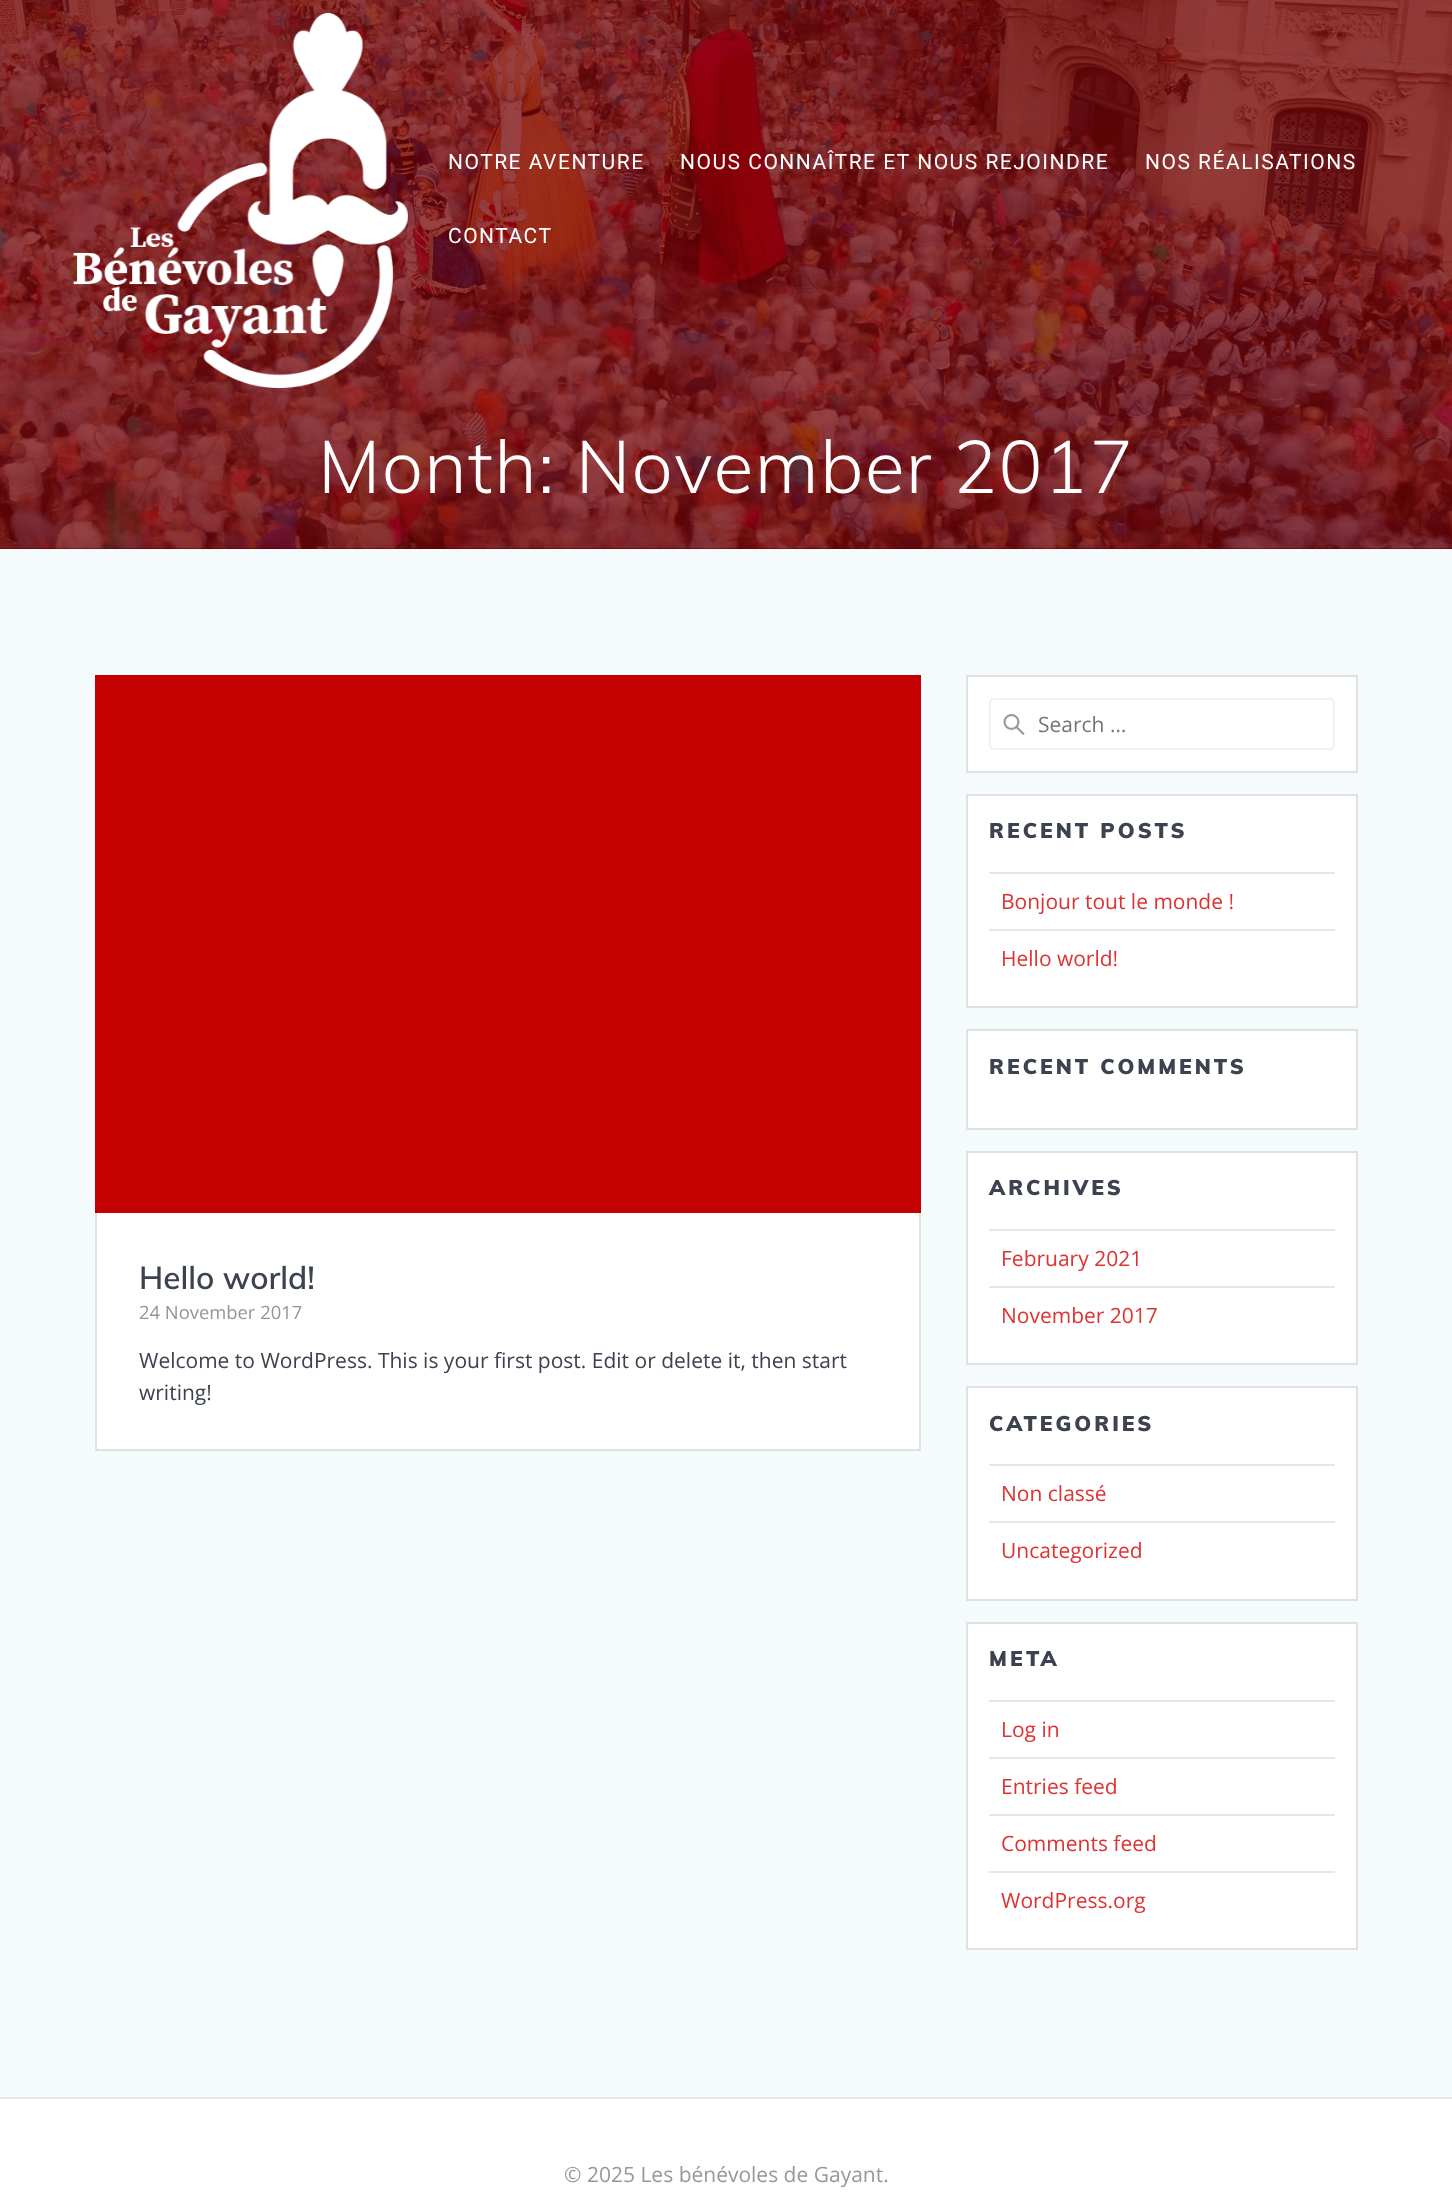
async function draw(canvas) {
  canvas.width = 1452
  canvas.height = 2208
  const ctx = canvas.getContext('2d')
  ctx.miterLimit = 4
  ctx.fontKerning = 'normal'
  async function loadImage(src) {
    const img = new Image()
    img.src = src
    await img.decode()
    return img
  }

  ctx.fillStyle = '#fff'
  ctx.fillRect(0, 0, 1452, 2208)
  ctx.fillStyle = '#570101'
  ctx.fillRect(0, 548, 1452, 1)
  ctx.drawImage(await loadImage('image1.png'), 0, 0, 1452, 549)
  ctx.drawImage(await loadImage('image0.png'), 73, 13, 335, 375)
  ctx.letterSpacing = '1.5px'
  ctx.font = '21px Roboto'
  ctx.fillStyle = '#fff'
  ctx.fillText('NOTRE AVENTURE', 448, 169)
  ctx.fillText('NOUS CONNAÎTRE ET NOUS REJOINDRE', 680, 169)
  ctx.fillText('NOS RÉALISATIONS', 1145, 169)
  ctx.fillText('CONTACT', 448, 243)
  ctx.letterSpacing = '1.35px'
  ctx.font = '300 73.5px Muli'
  ctx.fillText('Month: November 2017', 318, 493)
  ctx.fillStyle = '#f5fafd'
  ctx.fillRect(0, 549, 1452, 1548)
  ctx.fillStyle = '#fff'
  ctx.fillRect(97, 1213, 822, 236)
  ctx.strokeStyle = '#e0e1e1'
  ctx.lineWidth = 2
  ctx.strokeRect(96, 676, 824, 774)
  ctx.fillStyle = '#c40000'
  ctx.fillRect(95, 675, 826, 538)
  ctx.letterSpacing = '0px'
  ctx.font = '600 31.5px Muli'
  ctx.fillStyle = '#3c424f'
  ctx.fillText('Hello world!', 139, 1289)
  ctx.font = '18.4px Open Sans'
  ctx.fillStyle = '#91959b'
  ctx.fillText('24 November 2017', 139, 1319)
  ctx.font = '21px Open Sans'
  ctx.fillStyle = '#3c424f'
  ctx.fillText('Welcome to WordPress. This is your first post. Edit or delete it, then start', 139, 1368)
  ctx.fillText('writing!', 139, 1400)
  ctx.fillStyle = '#fff'
  ctx.beginPath()
  ctx.rect(967, 676, 390, 96)
  ctx.fill()
  ctx.stroke()
  ctx.drawImage(await loadImage('image2.png'), 1003, 714, 22, 21)
  ctx.beginPath()
  ctx.roundRect(990, 699, 344, 50, 4)
  ctx.strokeStyle = '#f1f1f1'
  ctx.stroke()
  ctx.fillStyle = '#757575'
  ctx.fillText('Search …', 1038, 732)
  ctx.fillStyle = '#fff'
  ctx.beginPath()
  ctx.rect(967, 795, 390, 212)
  ctx.fill()
  ctx.strokeStyle = '#e0e1e1'
  ctx.stroke()
  ctx.letterSpacing = '3px'
  ctx.font = '900 21px Muli'
  ctx.fillStyle = '#3c424f'
  ctx.fillText('RECENT POSTS', 989, 838)
  ctx.fillStyle = '#e6e6e6'
  ctx.fillRect(989, 872, 346, 2)
  ctx.letterSpacing = '0px'
  ctx.font = '21px Open Sans'
  ctx.fillStyle = '#d33'
  ctx.fillText('Bonjour tout le monde !', 1001, 909)
  ctx.fillStyle = '#e6e6e6'
  ctx.fillRect(989, 929, 346, 2)
  ctx.fillStyle = '#d33'
  ctx.fillText('Hello world!', 1001, 966)
  ctx.fillStyle = '#fff'
  ctx.beginPath()
  ctx.rect(967, 1030, 390, 99)
  ctx.fill()
  ctx.stroke()
  ctx.letterSpacing = '3px'
  ctx.font = '900 21px Muli'
  ctx.fillStyle = '#3c424f'
  ctx.fillText('RECENT COMMENTS', 989, 1074)
  ctx.fillStyle = '#fff'
  ctx.beginPath()
  ctx.rect(967, 1152, 390, 212)
  ctx.fill()
  ctx.stroke()
  ctx.fillStyle = '#3c424f'
  ctx.fillText('ARCHIVES', 989, 1195)
  ctx.fillStyle = '#e6e6e6'
  ctx.fillRect(989, 1229, 346, 2)
  ctx.letterSpacing = '0px'
  ctx.font = '21px Open Sans'
  ctx.fillStyle = '#d33'
  ctx.fillText('February 2021', 1001, 1266)
  ctx.fillStyle = '#e6e6e6'
  ctx.fillRect(989, 1286, 346, 2)
  ctx.fillStyle = '#d33'
  ctx.fillText('November 2017', 1001, 1323)
  ctx.fillStyle = '#fff'
  ctx.beginPath()
  ctx.rect(967, 1387, 390, 213)
  ctx.fill()
  ctx.stroke()
  ctx.letterSpacing = '3px'
  ctx.font = '900 21px Muli'
  ctx.fillStyle = '#3c424f'
  ctx.fillText('CATEGORIES', 989, 1431)
  ctx.fillStyle = '#e6e6e6'
  ctx.fillRect(989, 1464, 346, 2)
  ctx.letterSpacing = '0px'
  ctx.font = '21px Open Sans'
  ctx.fillStyle = '#d33'
  ctx.fillText('Non classé', 1001, 1501)
  ctx.fillStyle = '#e6e6e6'
  ctx.fillRect(989, 1521, 346, 2)
  ctx.fillStyle = '#d33'
  ctx.fillText('Uncategorized', 1001, 1558)
  ctx.fillStyle = '#fff'
  ctx.beginPath()
  ctx.rect(967, 1623, 390, 326)
  ctx.fill()
  ctx.stroke()
  ctx.letterSpacing = '3px'
  ctx.font = '900 21px Muli'
  ctx.fillStyle = '#3c424f'
  ctx.fillText('META', 989, 1666)
  ctx.fillStyle = '#e6e6e6'
  ctx.fillRect(989, 1700, 346, 2)
  ctx.letterSpacing = '0px'
  ctx.font = '21px Open Sans'
  ctx.fillStyle = '#d33'
  ctx.fillText('Log in', 1001, 1737)
  ctx.fillStyle = '#e6e6e6'
  ctx.fillRect(989, 1757, 346, 2)
  ctx.fillStyle = '#d33'
  ctx.fillText('Entries feed', 1001, 1794)
  ctx.fillStyle = '#e6e6e6'
  ctx.fillRect(989, 1814, 346, 2)
  ctx.fillStyle = '#d33'
  ctx.fillText('Comments feed', 1001, 1851)
  ctx.fillStyle = '#e6e6e6'
  ctx.fillRect(989, 1871, 346, 2)
  ctx.fillStyle = '#d33'
  ctx.fillText('WordPress.org', 1001, 1908)
  ctx.fillStyle = '#e8e8e8'
  ctx.fillRect(0, 2097, 1452, 2)
  ctx.fillStyle = '#989898'
  ctx.fillText('© 2025 Les bénévoles de Gayant.', 564, 2182)
}

draw(document.querySelector('canvas'))
